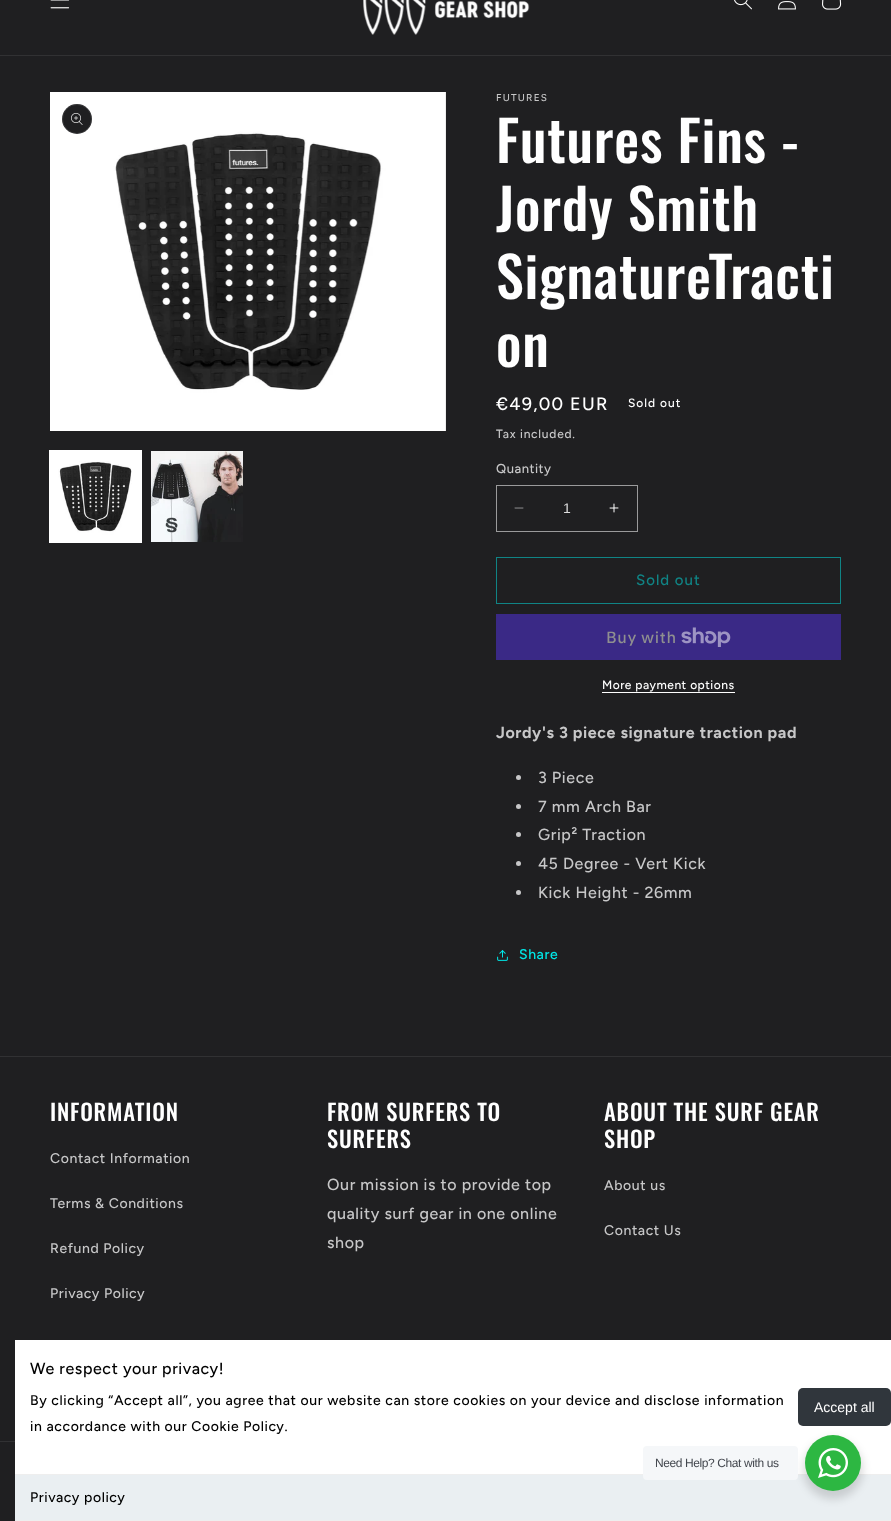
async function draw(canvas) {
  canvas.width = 891
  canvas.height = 1521
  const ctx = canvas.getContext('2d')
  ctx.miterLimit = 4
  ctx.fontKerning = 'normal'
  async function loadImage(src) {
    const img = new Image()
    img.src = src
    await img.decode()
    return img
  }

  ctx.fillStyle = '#1f1f21'
  ctx.fillRect(0, 0, 891, 1521)
  ctx.fillStyle = '#313133'
  ctx.fillRect(0, 55, 891, 1)
  ctx.drawImage(await loadImage('image0.png'), 50, 0, 20, 9)
  ctx.drawImage(await loadImage('image1.png'), 363, 0, 167, 35)
  ctx.drawImage(await loadImage('image2.png'), 734, 0, 18, 10)
  ctx.drawImage(await loadImage('image3.png'), 778, 1, 18, 9)
  ctx.drawImage(await loadImage('image4.png'), 822, 0, 20, 10)
  ctx.drawImage(await loadImage('image5.png'), 50, 92, 396, 339)
  ctx.fillStyle = '#1f1f21'
  ctx.beginPath()
  ctx.arc(77, 119, 15, 0, 2 * Math.PI)
  ctx.fill()
  ctx.beginPath()
  ctx.arc(77, 119, 14.5, 0, 2 * Math.PI)
  ctx.strokeStyle = '#ffffff1a'
  ctx.stroke()
  ctx.drawImage(await loadImage('image6.png'), 71, 113, 12, 12)
  ctx.strokeStyle = '#fff'
  ctx.strokeRect(49.5, 450.5, 92, 92)
  ctx.drawImage(await loadImage('image7.png'), 50, 451, 91, 91)
  ctx.drawImage(await loadImage('image8.png'), 151, 451, 92, 91)
  ctx.letterSpacing = '1.25px'
  ctx.font = '500 10px Figtree'
  ctx.fillStyle = '#c7c7c8'
  ctx.fillText('FUTURES', 496, 101)
  ctx.letterSpacing = '0.8px'
  ctx.font = '500 56px Oswald'
  ctx.fillStyle = '#fff'
  ctx.fillText('Futures Fins -', 496, 163)
  ctx.fillText('Jordy Smith', 496, 231)
  ctx.fillText('SignatureTracti', 496, 299)
  ctx.fillText('on', 496, 367)
  ctx.letterSpacing = '1.25px'
  ctx.font = '500 18px Figtree'
  ctx.fillText('€49,00 EUR', 496, 410)
  ctx.letterSpacing = '1px'
  ctx.font = '500 12px Figtree'
  ctx.fillText('Sold out', 628, 407)
  ctx.letterSpacing = '0.75px'
  ctx.fillStyle = '#c7c7c8'
  ctx.fillText('Tax included.', 496, 438)
  ctx.letterSpacing = '0.5px'
  ctx.font = '500 13px Figtree'
  ctx.fillText('Quantity', 496, 473)
  ctx.drawImage(await loadImage('image9.png'), 514, 507, 10, 2)
  ctx.drawImage(await loadImage('image10.png'), 609, 503, 10, 10)
  ctx.strokeStyle = '#9a9a9b'
  ctx.strokeRect(496.5, 485.5, 141, 46)
  ctx.letterSpacing = '0px'
  ctx.font = '14px Liberation Sans'
  ctx.fillStyle = '#ddddde'
  ctx.fillText('1', 563, 513)
  ctx.strokeStyle = '#108485'
  ctx.strokeRect(496.5, 557.5, 344, 46)
  ctx.letterSpacing = '1px'
  ctx.font = '500 15px Figtree'
  ctx.fillStyle = '#108485'
  ctx.fillText('Sold out', 636, 585)
  ctx.fillStyle = '#3a2986'
  ctx.fillRect(496, 614, 345, 46)
  ctx.letterSpacing = '0.6px'
  ctx.font = '500 16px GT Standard'
  ctx.fillStyle = '#8f8f90'
  ctx.fillText('Buy with', 606, 643)
  ctx.drawImage(await loadImage('image11.png'), 681, 627, 50, 20)
  ctx.letterSpacing = '0.5px'
  ctx.font = '500 12px Figtree'
  ctx.fillStyle = '#fff'
  ctx.fillText('More payment options', 602, 689)
  ctx.fillRect(602, 692, 133, 1)
  ctx.letterSpacing = '0.6px'
  ctx.font = 'bold 16px Figtree'
  ctx.fillStyle = '#c7c7c8'
  ctx.fillText('Jordy\'s 3 piece signature traction pad', 496, 738)
  ctx.beginPath()
  ctx.arc(518.5, 777.5, 2.5, 0, 2 * Math.PI)
  ctx.fill()
  ctx.font = '500 16px Figtree'
  ctx.fillText('3 Piece', 538, 783)
  ctx.beginPath()
  ctx.arc(518.5, 806.5, 2.5, 0, 2 * Math.PI)
  ctx.fill()
  ctx.fillText('7 mm Arch Bar', 538, 812)
  ctx.beginPath()
  ctx.arc(518.5, 834.5, 2.5, 0, 2 * Math.PI)
  ctx.fill()
  ctx.fillText('Grip² Traction', 538, 840)
  ctx.beginPath()
  ctx.arc(518.5, 863.5, 2.5, 0, 2 * Math.PI)
  ctx.fill()
  ctx.fillText('45 Degree - Vert Kick', 538, 869)
  ctx.beginPath()
  ctx.arc(518.5, 892.5, 2.5, 0, 2 * Math.PI)
  ctx.fill()
  ctx.fillText('Kick Height - 26mm', 538, 898)
  ctx.drawImage(await loadImage('image12.png'), 497, 950, 11, 11)
  ctx.font = '500 14px Figtree'
  ctx.fillStyle = '#00e8e8'
  ctx.fillText('Share', 519, 959)
  ctx.fillStyle = '#313133'
  ctx.fillRect(0, 1056, 891, 1)
  ctx.letterSpacing = '0.8px'
  ctx.font = '500 22.5px Oswald'
  ctx.fillStyle = '#fff'
  ctx.fillText('INFORMATION', 50, 1121)
  ctx.letterSpacing = '0.6px'
  ctx.font = '500 14px Figtree'
  ctx.fillStyle = '#c7c7c8'
  ctx.fillText('Contact Information', 50, 1163)
  ctx.fillText('Terms & Conditions', 50, 1208)
  ctx.fillText('Refund Policy', 50, 1253)
  ctx.fillText('Privacy Policy', 50, 1298)
  ctx.letterSpacing = '0.8px'
  ctx.font = '500 22.5px Oswald'
  ctx.fillStyle = '#fff'
  ctx.fillText('FROM SURFERS TO', 327, 1121)
  ctx.fillText('SURFERS', 327, 1148)
  ctx.letterSpacing = '0.6px'
  ctx.font = '500 16px Figtree'
  ctx.fillStyle = '#c7c7c8'
  ctx.fillText('Our mission is to provide top', 327, 1190)
  ctx.fillText('quality surf gear in one online', 327, 1219)
  ctx.fillText('shop', 327, 1248)
  ctx.letterSpacing = '0.8px'
  ctx.font = '500 22.5px Oswald'
  ctx.fillStyle = '#fff'
  ctx.fillText('ABOUT THE SURF GEAR', 604, 1121)
  ctx.fillText('SHOP', 604, 1148)
  ctx.letterSpacing = '0.6px'
  ctx.font = '500 14px Figtree'
  ctx.fillStyle = '#c7c7c8'
  ctx.fillText('About us', 604, 1190)
  ctx.fillText('Contact Us', 604, 1235)
  ctx.fillStyle = '#313133'
  ctx.fillRect(0, 1441, 15, 1)
  ctx.fillStyle = '#fff'
  ctx.fillRect(15, 1340, 876, 134)
  ctx.font = '500 16px Figtree'
  ctx.fillStyle = '#000'
  ctx.fillText('We respect your privacy!', 30, 1374)
  ctx.font = '500 14px Figtree'
  ctx.fillText('By clicking “Accept all”, you agree that our website can store cookies on your device and disclose information', 30, 1405)
  ctx.fillText('in accordance with our Cookie Policy.', 30, 1431)
  ctx.fillStyle = '#30363c'
  ctx.beginPath()
  ctx.roundRect(798, 1388, 93, 38, 5)
  ctx.fill()
  ctx.letterSpacing = '0px'
  ctx.font = '14px Liberation Sans'
  ctx.fillStyle = '#fff'
  ctx.fillText('Accept all', 814, 1412)
  ctx.fillStyle = '#eaeff2'
  ctx.fillRect(15, 1475, 876, 45)
  ctx.fillStyle = '#eee'
  ctx.fillRect(15, 1474, 876, 1)
  ctx.fillRect(15, 1520, 876, 1)
  ctx.letterSpacing = '0.6px'
  ctx.font = '500 14px Figtree'
  ctx.fillStyle = '#000'
  ctx.fillText('Privacy policy', 30, 1502)
  ctx.fillStyle = '#00000024'
  ctx.filter = 'blur(4px)'
  ctx.beginPath()
  ctx.roundRect(803, 1439, 60, 60, 30)
  ctx.fill()
  ctx.filter = 'none'
  ctx.fillStyle = '#f5f7f9'
  ctx.beginPath()
  ctx.roundRect(643, 1446, 155, 34, 4)
  ctx.fill()
  ctx.letterSpacing = '-0.4px'
  ctx.font = '12px Liberation Sans'
  ctx.fillStyle = '#43474e'
  ctx.fillText('Need Help? Chat with us', 655, 1467)
  ctx.fillStyle = '#2db742'
  ctx.beginPath()
  ctx.arc(833, 1463, 28, 0, 2 * Math.PI)
  ctx.fill()
  ctx.drawImage(await loadImage('image13.png'), 818, 1448, 30, 30)
}

draw(document.querySelector('canvas'))
